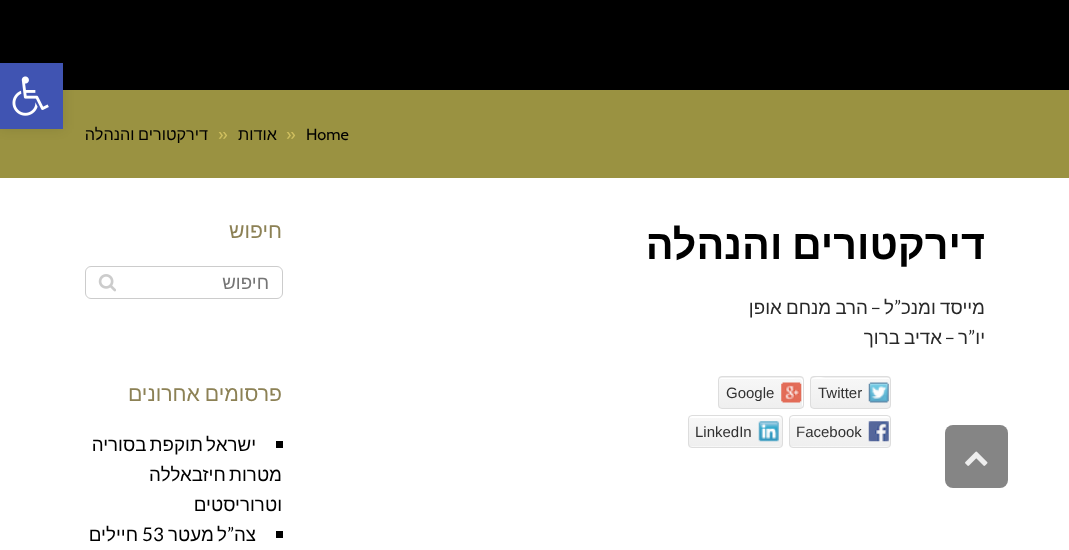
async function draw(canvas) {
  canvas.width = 1069
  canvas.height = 550
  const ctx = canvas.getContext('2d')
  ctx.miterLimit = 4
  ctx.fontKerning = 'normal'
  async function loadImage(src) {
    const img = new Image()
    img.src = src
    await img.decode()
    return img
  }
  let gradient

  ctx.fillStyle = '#fff'
  ctx.fillRect(0, 0, 1069, 550)
  ctx.fillStyle = '#000'
  ctx.fillRect(0, 0, 1069, 90)
  ctx.fillStyle = '#9a9241'
  ctx.fillRect(0, 90, 1069, 88)
  ctx.fillStyle = '#0000001a'
  ctx.filter = 'blur(6px)'
  ctx.beginPath()
  ctx.rect(0, 63, 63, 66)
  ctx.fill()
  ctx.filter = 'none'
  ctx.fillStyle = '#4054b2'
  ctx.fillRect(0, 63, 63, 66)
  ctx.drawImage(await loadImage('image0.png'), 12, 76, 37, 40)
  ctx.font = '16.25px Cabin'
  ctx.fillStyle = '#000'
  ctx.fillText('Home', 306, 140)
  ctx.fillStyle = '#cfbf5f'
  ctx.fillText('»', 286, 140)
  ctx.direction = 'rtl'
  ctx.font = '16.25px Liberation Sans'
  ctx.fillStyle = '#000'
  ctx.fillText('אודות', 277, 140)
  ctx.direction = 'ltr'
  ctx.font = '16.25px Cabin'
  ctx.fillStyle = '#cfbf5f'
  ctx.fillText('»', 218, 140)
  ctx.wordSpacing = '-1px'
  ctx.direction = 'rtl'
  ctx.font = '16.25px Liberation Sans'
  ctx.fillStyle = '#000'
  ctx.fillText('דירקטורים והנהלה', 208, 140)
  ctx.wordSpacing = '-2px'
  ctx.font = 'bold 41.25px Liberation Sans'
  ctx.fillText('דירקטורים והנהלה', 985, 259)
  ctx.wordSpacing = '-1px'
  ctx.font = '18.75px Liberation Sans'
  ctx.fillStyle = '#282828'
  ctx.fillText('מייסד ומנכ', 985, 314)
  ctx.wordSpacing = '0px'
  ctx.font = '18.75px Lato'
  ctx.fillText('”', 901, 314)
  ctx.font = '18.75px Liberation Sans'
  ctx.fillText('ל', 894, 314)
  ctx.font = '18.75px Lato'
  ctx.fillText('–', 881, 314)
  ctx.wordSpacing = '-1px'
  ctx.font = '18.75px Liberation Sans'
  ctx.fillText('הרב מנחם אופן', 868, 314)
  ctx.wordSpacing = '0px'
  ctx.fillText('יו', 985, 344)
  ctx.font = '18.75px Lato'
  ctx.fillText('”', 975, 344)
  ctx.font = '18.75px Liberation Sans'
  ctx.fillText('ר', 968, 344)
  ctx.font = '18.75px Lato'
  ctx.fillText('–', 955, 344)
  ctx.wordSpacing = '-1px'
  ctx.font = '18.75px Liberation Sans'
  ctx.fillText('אדיב ברוך', 942, 344)
  ctx.save()
  ctx.beginPath()
  ctx.roundRect(810, 376, 81, 33, 4)
  ctx.clip()
  gradient = ctx.createLinearGradient(851, 348, 851, 378)
  gradient.addColorStop(0, '#f7f7f7')
  gradient.addColorStop(1, '#efefef')
  ctx.fillStyle = gradient
  ctx.fillRect(810, 376, 81, 2)
  gradient = ctx.createLinearGradient(851, 378, 851, 408)
  gradient.addColorStop(0, '#f7f7f7')
  gradient.addColorStop(1, '#efefef')
  ctx.fillStyle = gradient
  ctx.fillRect(810, 378, 81, 30)
  ctx.restore()
  ctx.fillStyle = '#fff'
  ctx.beginPath()
  ctx.moveTo(814, 379)
  ctx.lineTo(888, 379)
  ctx.bezierCurveTo(889, 379, 890, 380, 890, 381)
  ctx.bezierCurveTo(890, 379, 889, 378, 888, 378)
  ctx.lineTo(826, 378)
  ctx.bezierCurveTo(825, 378, 811, 375, 811, 381)
  ctx.bezierCurveTo(811, 380, 812, 379, 814, 379)
  ctx.closePath()
  ctx.fill()
  ctx.beginPath()
  ctx.roundRect(810.5, 376.5, 80, 32, 3.5)
  ctx.strokeStyle = '#ddd'
  ctx.stroke()
  ctx.drawImage(await loadImage('image1.png'), 868, 382, 21, 21)
  ctx.wordSpacing = '0px'
  ctx.direction = 'ltr'
  ctx.font = '15px Liberation Sans'
  ctx.fillStyle = '#313131'
  ctx.fillText('Twitter', 818, 398)
  ctx.save()
  ctx.beginPath()
  ctx.roundRect(718, 376, 86, 33, 4)
  ctx.clip()
  gradient = ctx.createLinearGradient(761, 348, 761, 378)
  gradient.addColorStop(0, '#f7f7f7')
  gradient.addColorStop(1, '#efefef')
  ctx.fillStyle = gradient
  ctx.fillRect(718, 376, 86, 2)
  gradient = ctx.createLinearGradient(761, 378, 761, 408)
  gradient.addColorStop(0, '#f7f7f7')
  gradient.addColorStop(1, '#efefef')
  ctx.fillStyle = gradient
  ctx.fillRect(718, 378, 86, 30)
  ctx.restore()
  ctx.fillStyle = '#fff'
  ctx.beginPath()
  ctx.moveTo(721, 379)
  ctx.lineTo(787, 379)
  ctx.bezierCurveTo(803, 379, 802, 376, 802, 389)
  ctx.lineTo(802, 408)
  ctx.bezierCurveTo(802, 407, 803, 406, 803, 406)
  ctx.lineTo(803, 380)
  ctx.bezierCurveTo(803, 379, 802, 378, 800, 378)
  ctx.lineTo(722, 378)
  ctx.bezierCurveTo(720, 378, 719, 379, 719, 380)
  ctx.lineTo(719, 381)
  ctx.bezierCurveTo(719, 380, 720, 379, 721, 379)
  ctx.closePath()
  ctx.fill()
  ctx.beginPath()
  ctx.roundRect(718.5, 376.5, 85, 32, 3.5)
  ctx.stroke()
  ctx.drawImage(await loadImage('image2.png'), 781, 382, 21, 21)
  ctx.fillStyle = '#313131'
  ctx.fillText('Google', 726, 398)
  ctx.save()
  ctx.beginPath()
  ctx.roundRect(789, 415, 102, 33, 4)
  ctx.clip()
  gradient = ctx.createLinearGradient(840, 416, 840, 446)
  gradient.addColorStop(0, '#f7f7f7')
  gradient.addColorStop(1, '#efefef')
  ctx.fillStyle = gradient
  ctx.fillRect(789, 416, 102, 30)
  gradient = ctx.createLinearGradient(840, 446, 840, 476)
  gradient.addColorStop(0, '#f7f7f7')
  gradient.addColorStop(1, '#efefef')
  ctx.fillStyle = gradient
  ctx.fillRect(789, 446, 102, 2)
  ctx.restore()
  ctx.fillStyle = '#fff'
  ctx.beginPath()
  ctx.moveTo(792, 418)
  ctx.lineTo(888, 418)
  ctx.bezierCurveTo(889, 418, 890, 419, 890, 420)
  ctx.lineTo(890, 418)
  ctx.bezierCurveTo(890, 417, 889, 416, 888, 416)
  ctx.lineTo(792, 416)
  ctx.bezierCurveTo(791, 416, 790, 417, 790, 418)
  ctx.lineTo(790, 420)
  ctx.bezierCurveTo(790, 419, 791, 418, 792, 418)
  ctx.closePath()
  ctx.fill()
  ctx.beginPath()
  ctx.roundRect(789.5, 415.5, 101, 32, 3.5)
  ctx.stroke()
  ctx.drawImage(await loadImage('image3.png'), 868, 421, 21, 21)
  ctx.fillStyle = '#313131'
  ctx.fillText('Facebook', 796, 437)
  ctx.save()
  ctx.beginPath()
  ctx.roundRect(688, 415, 95, 33, 4)
  ctx.clip()
  gradient = ctx.createLinearGradient(735, 416, 735, 446)
  gradient.addColorStop(0, '#f7f7f7')
  gradient.addColorStop(1, '#efefef')
  ctx.fillStyle = gradient
  ctx.fillRect(688, 416, 95, 30)
  gradient = ctx.createLinearGradient(735, 446, 735, 476)
  gradient.addColorStop(0, '#f7f7f7')
  gradient.addColorStop(1, '#efefef')
  ctx.fillStyle = gradient
  ctx.fillRect(688, 446, 95, 2)
  ctx.restore()
  ctx.fillStyle = '#fff'
  ctx.beginPath()
  ctx.moveTo(691, 418)
  ctx.lineTo(779, 418)
  ctx.bezierCurveTo(780, 418, 781, 419, 781, 420)
  ctx.bezierCurveTo(781, 412, 769, 416, 764, 416)
  ctx.lineTo(706, 416)
  ctx.bezierCurveTo(701, 416, 689, 412, 689, 420)
  ctx.bezierCurveTo(689, 419, 690, 418, 691, 418)
  ctx.closePath()
  ctx.fill()
  ctx.beginPath()
  ctx.roundRect(688.5, 415.5, 94, 32, 3.5)
  ctx.stroke()
  ctx.drawImage(await loadImage('image4.png'), 758, 421, 21, 21)
  ctx.fillStyle = '#313131'
  ctx.fillText('LinkedIn', 695, 437)
  ctx.direction = 'rtl'
  ctx.font = '21.25px Liberation Sans'
  ctx.fillStyle = '#8c8155'
  ctx.fillText('חיפוש', 282, 238)
  ctx.beginPath()
  ctx.roundRect(85.5, 266.5, 197, 32, 5.5)
  ctx.strokeStyle = '#ccc'
  ctx.stroke()
  ctx.font = '18.75px Liberation Sans'
  ctx.fillStyle = '#757575'
  ctx.fillText('חיפוש', 269, 289)
  ctx.drawImage(await loadImage('image5.png'), 98, 274, 18, 18)
  ctx.wordSpacing = '-1px'
  ctx.font = '21.25px Liberation Sans'
  ctx.fillStyle = '#8c8155'
  ctx.fillText('פרסומים אחרונים', 282, 401)
  ctx.fillStyle = '#000'
  ctx.fillRect(276, 441, 7, 7)
  ctx.wordSpacing = '-2px'
  ctx.font = '18.75px Liberation Sans'
  ctx.fillText('ישראל תוקפת בסוריה', 256, 451)
  ctx.fillText('מטרות חיזבאללה', 282, 481)
  ctx.wordSpacing = '0px'
  ctx.fillText('וטרוריסטים', 282, 511)
  ctx.fillRect(276, 531, 7, 7)
  ctx.fillText('צה', 256, 541)
  ctx.wordSpacing = '-2px'
  ctx.fillText('ל מעטר', 227, 541)
  ctx.wordSpacing = '0px'
  ctx.font = '18.75px Lato'
  ctx.fillText('”', 234, 541)
  ctx.direction = 'ltr'
  ctx.fillText('53', 142, 541)
  ctx.direction = 'rtl'
  ctx.font = '18.75px Liberation Sans'
  ctx.fillText('חיילים', 138, 541)
  ctx.fillStyle = '#858585'
  ctx.beginPath()
  ctx.roundRect(945, 425, 63, 63, 8)
  ctx.fill()
  ctx.drawImage(await loadImage('image6.png'), 965, 451, 23, 15)
}

draw(document.querySelector('canvas'))
